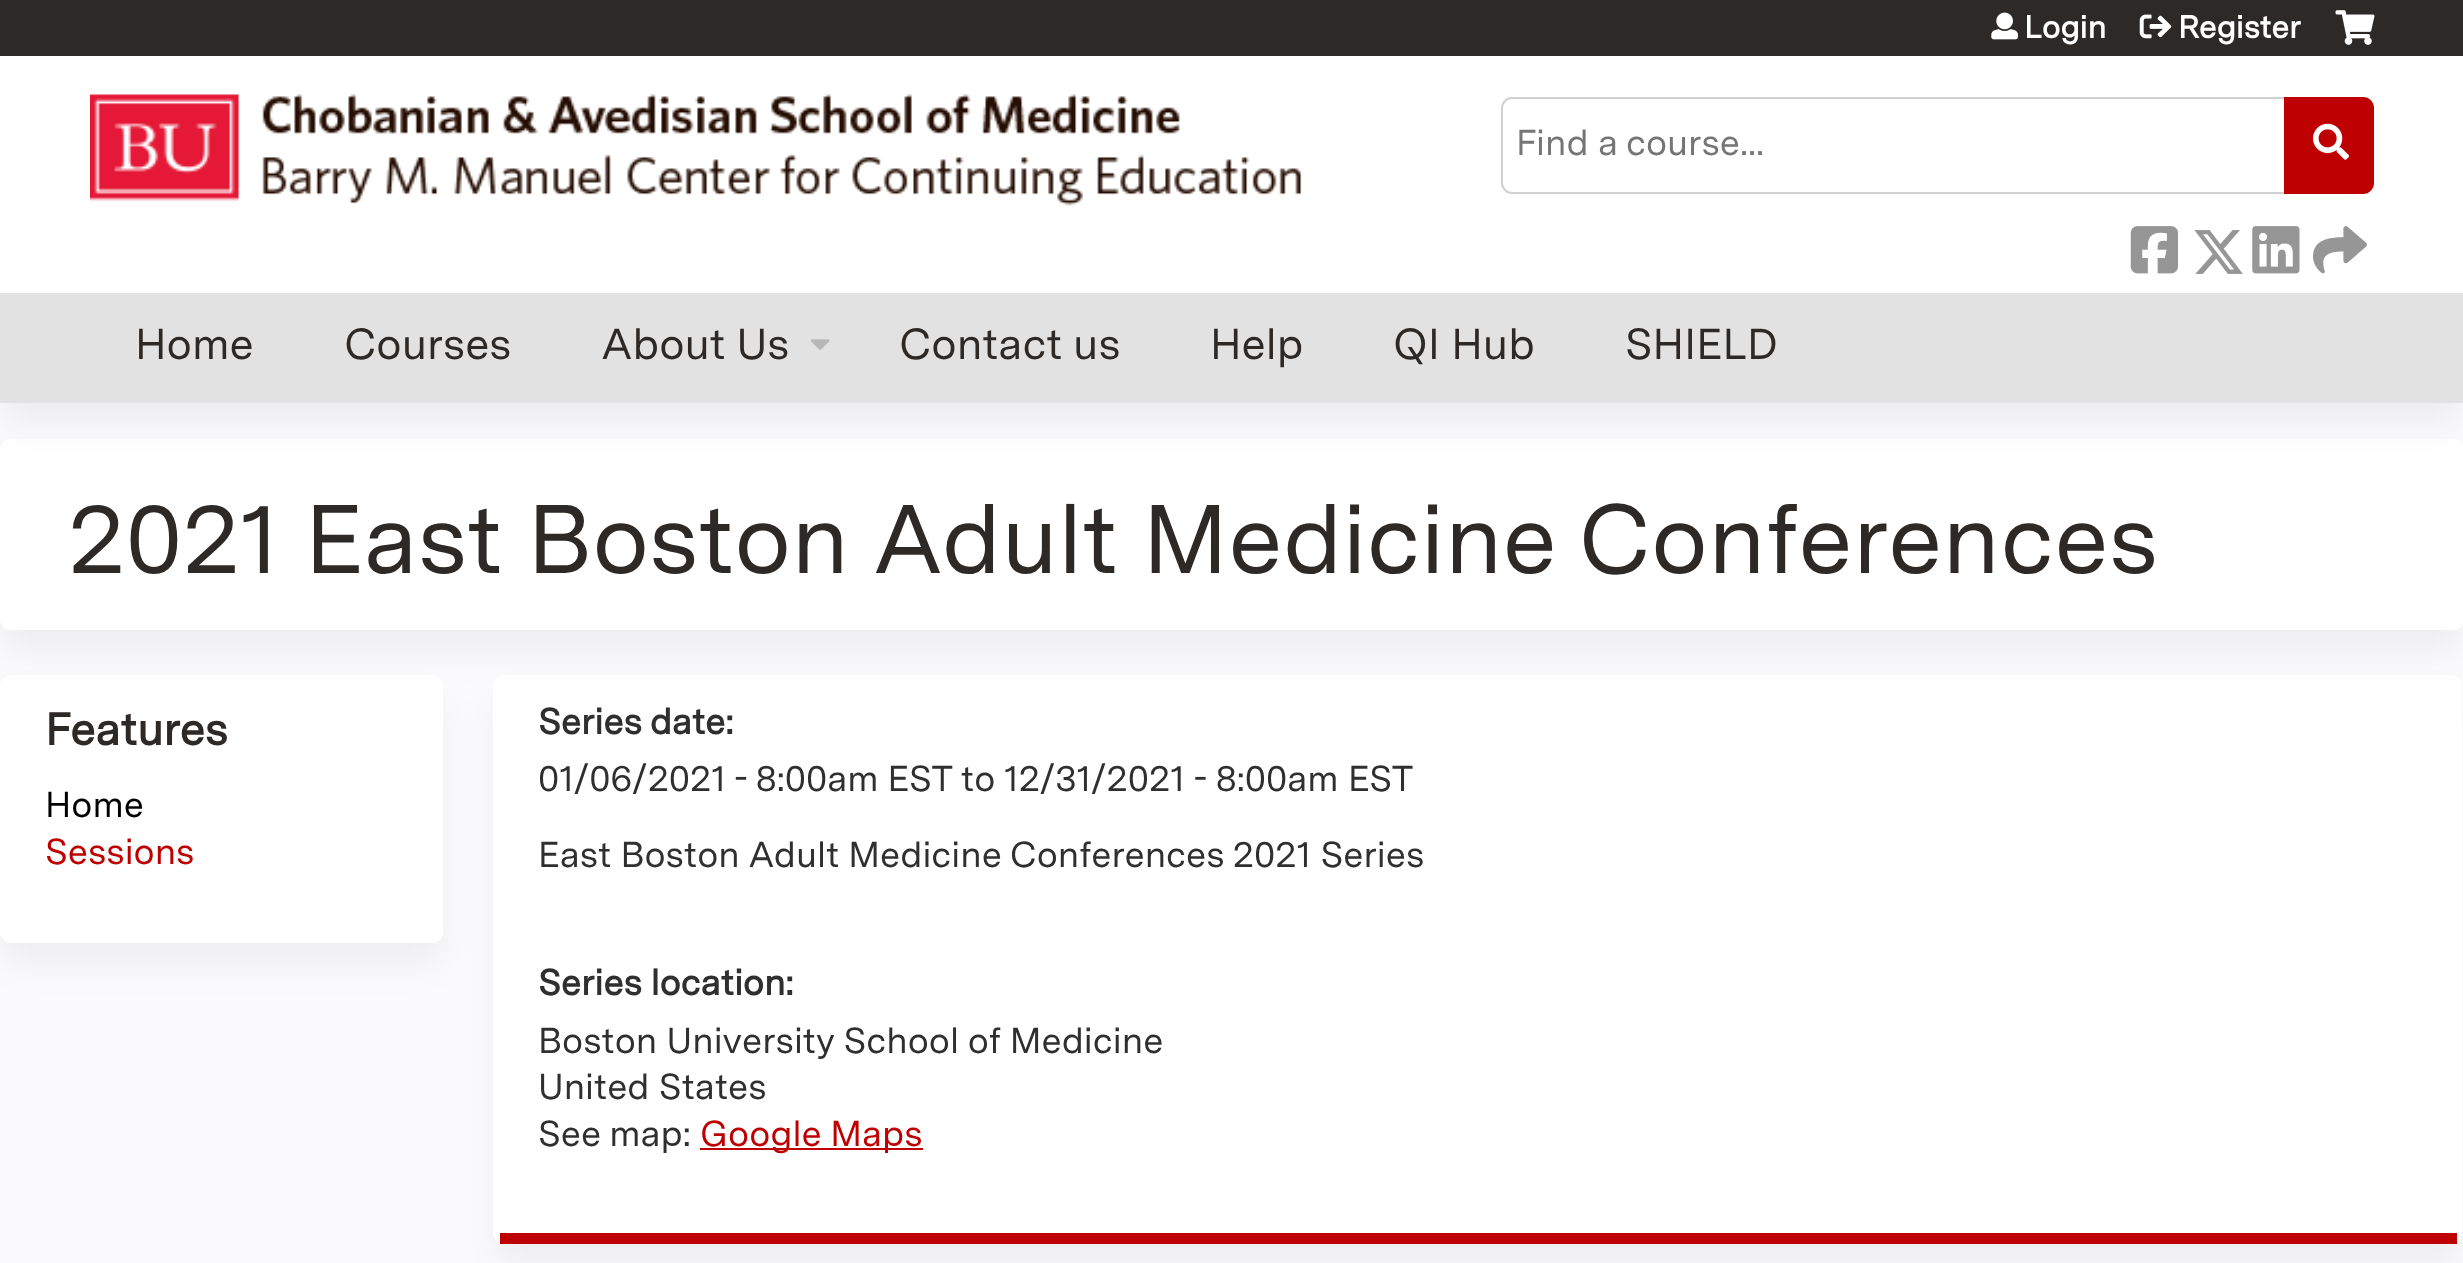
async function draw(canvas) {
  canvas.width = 2463
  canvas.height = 1263
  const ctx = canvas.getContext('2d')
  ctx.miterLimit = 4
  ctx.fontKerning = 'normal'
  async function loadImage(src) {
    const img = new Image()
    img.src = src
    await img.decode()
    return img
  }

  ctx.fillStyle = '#fbfbfd'
  ctx.fillRect(0, 0, 2463, 1263)
  ctx.fillStyle = '#fff'
  ctx.fillRect(0, 56, 2463, 237)
  ctx.fillStyle = '#2d2926'
  ctx.fillRect(0, 0, 2463, 56)
  ctx.drawImage(await loadImage('image0.png'), 90, 94, 1212, 112)
  ctx.drawImage(await loadImage('image1.png'), 1991, 12, 28, 28)
  ctx.font = 'bold 31.5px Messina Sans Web'
  ctx.fillStyle = '#fff'
  ctx.fillText('Login', 2024, 38)
  ctx.drawImage(await loadImage('image2.png'), 2139, 14, 33, 25)
  ctx.fillText('Register', 2178, 38)
  ctx.drawImage(await loadImage('image3.png'), 2335, 10, 40, 35)
  ctx.beginPath()
  ctx.roundRect(1502, 98, 783, 95, [10, 0, 0, 10])
  ctx.strokeStyle = '#d1d1d1'
  ctx.lineWidth = 2
  ctx.stroke()
  ctx.fillStyle = '#be0000'
  ctx.beginPath()
  ctx.roundRect(2284, 97, 90, 97, [0, 11, 11, 0])
  ctx.fill()
  ctx.font = '36px Messina Sans Web'
  ctx.fillStyle = '#757575'
  ctx.fillText('Find a course...', 1516, 155)
  ctx.drawImage(await loadImage('image4.png'), 2313, 123, 36, 37)
  ctx.drawImage(await loadImage('image5.png'), 2130, 226, 48, 48)
  ctx.drawImage(await loadImage('image6.png'), 2194, 230, 49, 44)
  ctx.drawImage(await loadImage('image7.png'), 2252, 226, 48, 48)
  ctx.drawImage(await loadImage('image8.png'), 2313, 226, 54, 48)
  ctx.fillStyle = '#0000000d'
  ctx.filter = 'blur(17px)'
  ctx.beginPath()
  ctx.roundRect(0, 461, 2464, 192, 11)
  ctx.fill()
  ctx.filter = 'none'
  ctx.fillStyle = '#fff'
  ctx.beginPath()
  ctx.roundRect(0, 439, 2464, 191, 11)
  ctx.fill()
  ctx.fillStyle = '#0000000d'
  ctx.filter = 'blur(17px)'
  ctx.beginPath()
  ctx.rect(0, 315, 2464, 110)
  ctx.fill()
  ctx.filter = 'none'
  ctx.fillStyle = '#e2e2e2'
  ctx.fillRect(0, 293, 2463, 110)
  ctx.font = '43.25px Messina Sans Web'
  ctx.fillStyle = '#2d2926'
  ctx.fillText('Home', 135, 359)
  ctx.fillText('Courses', 344, 359)
  ctx.fillText('About Us', 601, 359)
  ctx.drawImage(await loadImage('image9.png'), 810, 339, 20, 11)
  ctx.fillText('Contact us', 899, 359)
  ctx.fillText('Help', 1210, 359)
  ctx.fillText('QI Hub', 1393, 359)
  ctx.fillText('SHIELD', 1625, 359)
  ctx.font = '97.2px Messina Sans Web'
  ctx.fillText('2021 East Boston Adult Medicine Conferences', 68, 573)
  ctx.fillStyle = '#0000000d'
  ctx.filter = 'blur(17px)'
  ctx.beginPath()
  ctx.roundRect(493, 698, 1969, 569, 11)
  ctx.fill()
  ctx.filter = 'none'
  ctx.fillStyle = '#fff'
  ctx.beginPath()
  ctx.roundRect(493, 675, 1969, 569, 11)
  ctx.fill()
  ctx.fillStyle = '#0000000d'
  ctx.filter = 'blur(17px)'
  ctx.beginPath()
  ctx.roundRect(0, 698, 443, 267, 11)
  ctx.fill()
  ctx.filter = 'none'
  ctx.fillStyle = '#fff'
  ctx.beginPath()
  ctx.roundRect(0, 675, 443, 268, 11)
  ctx.fill()
  ctx.font = 'bold 45px Messina Sans Web'
  ctx.fillStyle = '#2d2926'
  ctx.fillText('Features', 45, 745)
  ctx.font = '36px Messina Sans Web'
  ctx.fillStyle = '#000'
  ctx.fillText('Home', 45, 817)
  ctx.fillStyle = '#be0000'
  ctx.fillText('Sessions', 45, 864)
  ctx.fillRect(500, 1233, 1957, 11)
  ctx.font = 'bold 36px Messina Sans Web'
  ctx.fillStyle = '#2f2f2f'
  ctx.fillText('Series date:', 538, 734)
  ctx.wordSpacing = '-0.5px'
  ctx.font = '36px Messina Sans Web'
  ctx.fillText('01/06/2021 - 8:00am EST', 538, 791)
  ctx.wordSpacing = '0px'
  ctx.fillText('to', 961, 791)
  ctx.fillText('12/31/2021 - 8:00am EST', 1004, 791)
  ctx.fillText('East Boston Adult Medicine Conferences 2021 Series', 538, 867)
  ctx.font = 'bold 36px Messina Sans Web'
  ctx.fillText('Series location:', 538, 995)
  ctx.font = '36px Messina Sans Web'
  ctx.fillText('Boston University School of Medicine', 538, 1053)
  ctx.fillText('United States', 538, 1099)
  ctx.wordSpacing = '-0.5px'
  ctx.fillText('See map:', 538, 1146)
  ctx.fillStyle = '#be0000'
  ctx.fillRect(700, 1148, 223, 2)
  ctx.wordSpacing = '0px'
  ctx.fillText('Google Maps', 700, 1146)
}

draw(document.querySelector('canvas'))
